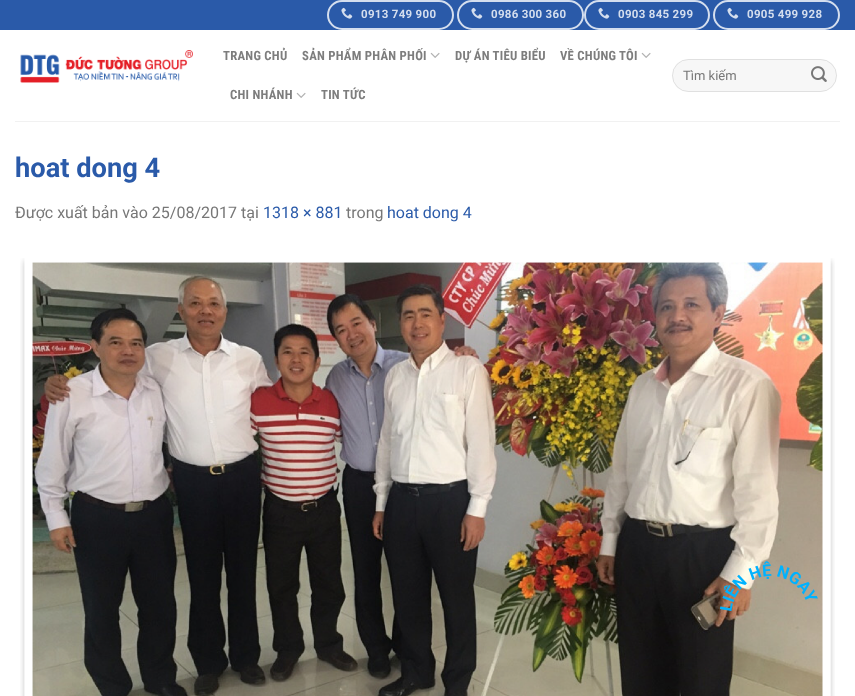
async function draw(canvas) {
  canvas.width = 855
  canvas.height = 696
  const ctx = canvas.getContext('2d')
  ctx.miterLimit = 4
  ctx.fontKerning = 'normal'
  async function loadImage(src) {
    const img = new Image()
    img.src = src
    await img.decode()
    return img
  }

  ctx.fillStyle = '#fff'
  ctx.fillRect(0, 0, 855, 696)
  ctx.fillStyle = '#2a5aa9'
  ctx.fillRect(0, 0, 855, 30)
  ctx.beginPath()
  ctx.roundRect(328, 1, 125, 28, 14)
  ctx.strokeStyle = '#d4deee'
  ctx.lineWidth = 2
  ctx.stroke()
  ctx.drawImage(await loadImage('image0.png'), 341, 7, 12, 12)
  ctx.letterSpacing = '0.3px'
  ctx.font = 'bold 11.5px Roboto'
  ctx.fillStyle = '#d4deee'
  ctx.fillText('0913 749 900', 361, 18)
  ctx.beginPath()
  ctx.roundRect(458, 1, 125, 28, 14)
  ctx.stroke()
  ctx.drawImage(await loadImage('image0.png'), 471, 7, 12, 12)
  ctx.fillText('0986 300 360', 491, 18)
  ctx.beginPath()
  ctx.roundRect(585, 1, 124, 28, 14)
  ctx.stroke()
  ctx.drawImage(await loadImage('image0.png'), 598, 7, 12, 12)
  ctx.fillText('0903 845 299', 618, 18)
  ctx.beginPath()
  ctx.roundRect(714, 1, 125, 28, 14)
  ctx.stroke()
  ctx.drawImage(await loadImage('image0.png'), 727, 7, 12, 12)
  ctx.fillText('0905 499 928', 747, 18)
  ctx.drawImage(await loadImage('image1.png'), 20, 50, 173, 33)
  ctx.letterSpacing = '0.25px'
  ctx.font = 'bold 12.75px Roboto Condensed'
  ctx.fillStyle = '#7d7d7d'
  ctx.fillText('TRANG CHỦ', 223, 60)
  ctx.fillText('SẢN PHẨM PHÂN PHỐI', 302, 60)
  ctx.drawImage(await loadImage('image2.png'), 430, 52, 10, 6)
  ctx.fillText('DỰ ÁN TIÊU BIỂU', 455, 60)
  ctx.fillText('VỀ CHÚNG TÔI', 560, 60)
  ctx.drawImage(await loadImage('image2.png'), 641, 52, 10, 6)
  ctx.fillText('CHI NHÁNH', 230, 99)
  ctx.drawImage(await loadImage('image2.png'), 296, 92, 10, 6)
  ctx.fillText('TIN TỨC', 321, 99)
  ctx.fillStyle = '#f7f7f7'
  ctx.beginPath()
  ctx.roundRect(672, 59, 165, 33, 16.5)
  ctx.fill()
  ctx.beginPath()
  ctx.roundRect(672.5, 59.5, 164, 32, 16)
  ctx.strokeStyle = '#00000017'
  ctx.lineWidth = 1
  ctx.stroke()
  ctx.letterSpacing = '0px'
  ctx.font = '13px Roboto'
  ctx.fillStyle = '#777'
  ctx.fillText('Tìm kiếm', 683, 80)
  ctx.drawImage(await loadImage('image3.png'), 811, 66, 16, 16)
  ctx.fillStyle = '#f1f1f1'
  ctx.fillRect(15, 121, 825, 1)
  ctx.font = 'bold 27.25px Roboto'
  ctx.fillStyle = '#2a5aa9'
  ctx.fillText('hoat dong 4', 15, 177)
  ctx.font = '16px Roboto'
  ctx.fillStyle = '#777'
  ctx.fillText('Được xuất bản vào 25/08/2017 tại', 15, 218)
  ctx.fillStyle = '#2a5aa9'
  ctx.fillText('1318 × 881', 263, 218)
  ctx.fillStyle = '#777'
  ctx.fillText('trong', 346, 218)
  ctx.fillStyle = '#2a5aa9'
  ctx.fillText('hoat dong 4', 387, 218)
  ctx.drawImage(await loadImage('image4.png'), 20, 258, 815, 438)
  ctx.drawImage(await loadImage('image5.png'), 719, 561, 99, 50)
}

draw(document.querySelector('canvas'))
